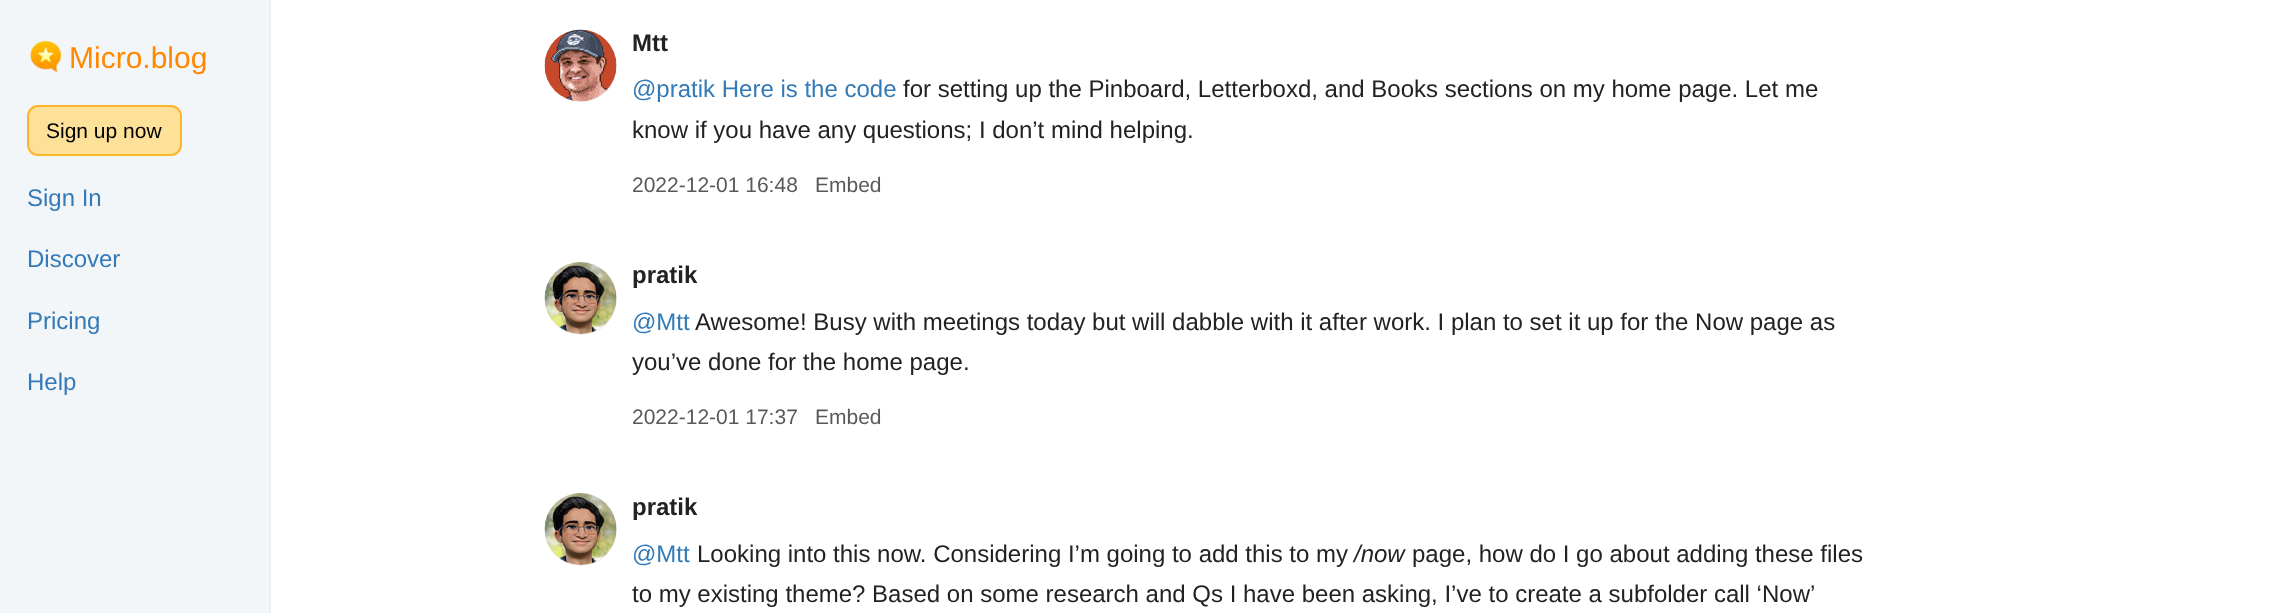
async function draw(canvas) {
  canvas.width = 2274
  canvas.height = 613
  const ctx = canvas.getContext('2d')
  ctx.miterLimit = 4
  ctx.fontKerning = 'normal'
  async function loadImage(src) {
    const img = new Image()
    img.src = src
    await img.decode()
    return img
  }

  ctx.fillStyle = '#fff'
  ctx.fillRect(0, 0, 2274, 613)
  ctx.fillStyle = '#f3f6f9'
  ctx.fillRect(0, 0, 269, 613)
  ctx.fillStyle = '#efefef'
  ctx.fillRect(269, 0, 2, 613)
  ctx.drawImage(await loadImage('image0.png'), 30, 41, 32, 31)
  ctx.font = '30px Liberation Sans'
  ctx.fillStyle = '#f80'
  ctx.fillText('Micro.blog', 69, 68)
  ctx.fillStyle = '#fee199'
  ctx.beginPath()
  ctx.roundRect(28, 106, 153, 49, 10)
  ctx.fill()
  ctx.strokeStyle = '#fdb52b'
  ctx.lineWidth = 2
  ctx.stroke()
  ctx.font = '21px Liberation Sans'
  ctx.fillStyle = '#000'
  ctx.fillText('Sign up now', 46, 138)
  ctx.font = '24px Liberation Sans'
  ctx.fillStyle = '#337ab7'
  ctx.fillText('Sign In', 27, 206)
  ctx.fillText('Discover', 27, 267)
  ctx.fillText('Pricing', 27, 329)
  ctx.fillText('Help', 27, 390)
  ctx.fillStyle = '#efefef'
  ctx.beginPath()
  ctx.arc(581, 66, 36, 0, 2 * Math.PI)
  ctx.fill()
  ctx.drawImage(await loadImage('image1.png'), 544, 29, 73, 73)
  ctx.font = 'bold 24px Liberation Sans'
  ctx.fillStyle = '#222'
  ctx.fillText('Mtt', 632, 51)
  ctx.font = '24px Liberation Sans'
  ctx.fillStyle = '#337ab7'
  ctx.fillText('@pratik Here is the code', 632, 97)
  ctx.fillStyle = '#222'
  ctx.fillText('for setting up the Pinboard, Letterboxd, and Books sections on my home page. Let me', 903, 97)
  ctx.fillText('know if you have any questions; I don’t mind helping.', 632, 138)
  ctx.font = '21px Liberation Sans'
  ctx.fillStyle = '#595959'
  ctx.fillText('2022-12-01 16:48', 632, 192)
  ctx.fillText('Embed', 815, 192)
  ctx.fillStyle = '#efefef'
  ctx.beginPath()
  ctx.arc(581, 299, 36, 0, 2 * Math.PI)
  ctx.fill()
  ctx.drawImage(await loadImage('image2.png'), 544, 262, 73, 72)
  ctx.font = 'bold 24px Liberation Sans'
  ctx.fillStyle = '#222'
  ctx.fillText('pratik', 632, 283)
  ctx.font = '24px Liberation Sans'
  ctx.fillStyle = '#337ab7'
  ctx.fillText('@Mtt', 632, 330)
  ctx.fillStyle = '#222'
  ctx.fillText('Awesome! Busy with meetings today but will dabble with it after work. I plan to set it up for the Now page as', 695, 330)
  ctx.fillText('you’ve done for the home page.', 632, 370)
  ctx.font = '21px Liberation Sans'
  ctx.fillStyle = '#595959'
  ctx.fillText('2022-12-01 17:37', 632, 424)
  ctx.fillText('Embed', 815, 424)
  ctx.fillStyle = '#efefef'
  ctx.beginPath()
  ctx.arc(581, 530, 36, 0, 2 * Math.PI)
  ctx.fill()
  ctx.drawImage(await loadImage('image2.png'), 544, 493, 73, 72)
  ctx.font = 'bold 24px Liberation Sans'
  ctx.fillStyle = '#222'
  ctx.fillText('pratik', 632, 515)
  ctx.font = '24px Liberation Sans'
  ctx.fillStyle = '#337ab7'
  ctx.fillText('@Mtt', 632, 562)
  ctx.fillStyle = '#222'
  ctx.fillText('Looking into this now. Considering I’m going to add this to my', 697, 562)
  ctx.font = 'italic 24px Liberation Sans'
  ctx.fillText('/now', 1354, 562)
  ctx.font = '24px Liberation Sans'
  ctx.fillText('page, how do I go about adding these files', 1412, 562)
  ctx.fillText('to my existing theme? Based on some research and Qs I have been asking, I’ve to create a subfolder call ‘Now’', 632, 602)
}

draw(document.querySelector('canvas'))
